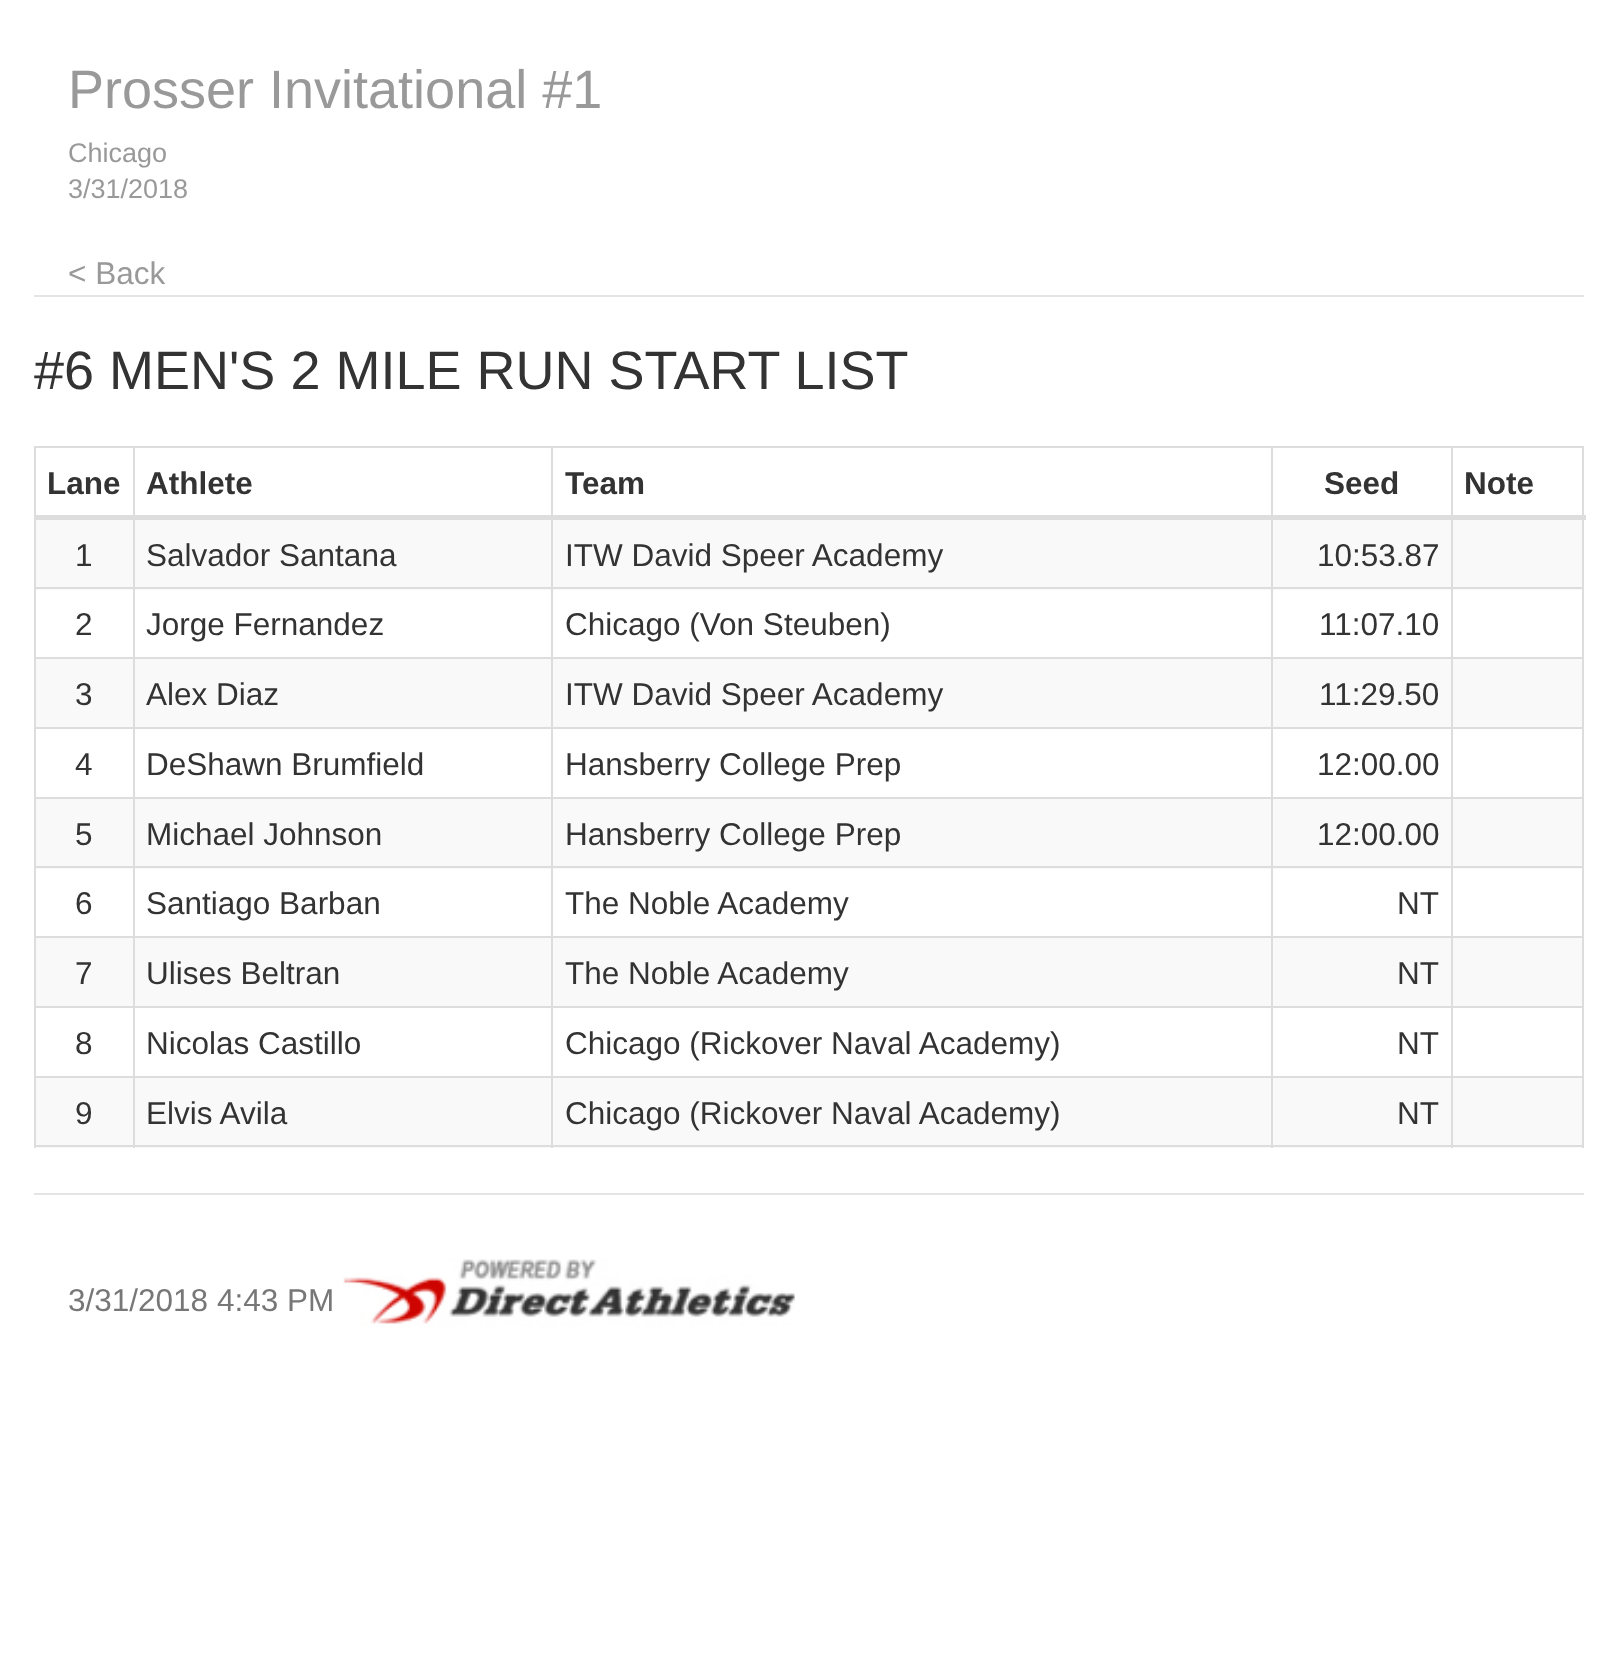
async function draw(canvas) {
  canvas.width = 1617
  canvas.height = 1674
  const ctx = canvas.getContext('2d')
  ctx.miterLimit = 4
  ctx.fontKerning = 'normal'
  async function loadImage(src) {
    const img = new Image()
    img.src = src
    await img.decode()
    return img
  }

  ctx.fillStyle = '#fff'
  ctx.fillRect(0, 0, 1617, 1674)
  ctx.fillStyle = '#e5e5e5'
  ctx.fillRect(34, 295, 1550, 2)
  ctx.font = '54px Liberation Sans'
  ctx.fillStyle = '#999'
  ctx.fillText('Prosser Invitational #1', 68, 108)
  ctx.font = '27px Liberation Sans'
  ctx.fillText('Chicago', 68, 162)
  ctx.fillText('3/31/2018', 68, 198)
  ctx.font = '31.5px Liberation Sans'
  ctx.fillText('< Back', 68, 284)
  ctx.font = '54px Liberation Sans'
  ctx.fillStyle = '#333'
  ctx.fillText('#6 MEN\'S 2 MILE RUN START LIST', 34, 389)
  ctx.fillStyle = '#ddd'
  ctx.fillRect(34, 446, 1550, 2)
  ctx.fillRect(1582, 446, 2, 702)
  ctx.fillStyle = '#f9f9f9'
  ctx.fillRect(36, 1078, 97, 70)
  ctx.fillRect(135, 1078, 1136, 70)
  ctx.fillRect(1273, 1078, 178, 70)
  ctx.fillRect(1453, 1078, 129, 70)
  ctx.fillStyle = '#ddd'
  ctx.fillRect(34, 1145, 1550, 2)
  ctx.fillRect(34, 446, 2, 702)
  ctx.font = 'bold 31.5px Liberation Sans'
  ctx.fillStyle = '#333'
  ctx.fillText('Lane', 47, 494)
  ctx.fillText('Athlete', 146, 494)
  ctx.fillText('Team', 565, 494)
  ctx.fillText('Seed', 1324, 494)
  ctx.fillStyle = '#f9f9f9'
  ctx.fillRect(36, 520, 97, 70)
  ctx.fillRect(135, 520, 1136, 70)
  ctx.fillRect(1273, 520, 178, 70)
  ctx.fillRect(1453, 520, 129, 70)
  ctx.fillStyle = '#ddd'
  ctx.fillRect(1451, 587, 133, 2)
  ctx.fillRect(1451, 657, 133, 2)
  ctx.fillRect(1451, 727, 133, 2)
  ctx.fillRect(1451, 797, 133, 2)
  ctx.fillStyle = '#f9f9f9'
  ctx.fillRect(1273, 799, 178, 70)
  ctx.fillRect(1453, 799, 129, 70)
  ctx.fillStyle = '#ddd'
  ctx.fillRect(1451, 866, 133, 2)
  ctx.fillRect(1451, 936, 133, 2)
  ctx.fillRect(1451, 1006, 133, 2)
  ctx.fillRect(1451, 1076, 133, 2)
  ctx.fillRect(1451, 1076, 2, 72)
  ctx.fillRect(1271, 1076, 183, 2)
  ctx.fillRect(1451, 1006, 2, 72)
  ctx.fillRect(1271, 1006, 183, 2)
  ctx.fillRect(1451, 936, 2, 72)
  ctx.fillRect(1271, 936, 183, 2)
  ctx.fillRect(1451, 866, 2, 72)
  ctx.fillRect(1271, 866, 183, 2)
  ctx.fillRect(1451, 797, 2, 72)
  ctx.fillRect(1271, 797, 183, 2)
  ctx.fillRect(1451, 727, 2, 72)
  ctx.fillRect(1271, 727, 183, 2)
  ctx.fillRect(1451, 657, 2, 72)
  ctx.fillRect(1271, 657, 183, 2)
  ctx.fillRect(1451, 587, 2, 72)
  ctx.fillRect(1271, 587, 183, 2)
  ctx.fillStyle = '#f9f9f9'
  ctx.fillRect(135, 799, 1136, 70)
  ctx.fillStyle = '#ddd'
  ctx.fillRect(1271, 1076, 2, 72)
  ctx.fillRect(551, 1076, 723, 2)
  ctx.fillRect(1271, 1006, 2, 72)
  ctx.fillRect(551, 1006, 723, 2)
  ctx.fillRect(1271, 936, 2, 72)
  ctx.fillRect(551, 936, 723, 2)
  ctx.fillRect(1271, 866, 2, 72)
  ctx.fillRect(551, 866, 723, 2)
  ctx.fillRect(1271, 797, 2, 72)
  ctx.fillRect(551, 797, 723, 2)
  ctx.fillRect(1271, 727, 2, 72)
  ctx.fillRect(551, 727, 723, 2)
  ctx.fillRect(1271, 657, 2, 72)
  ctx.fillRect(551, 657, 723, 2)
  ctx.fillRect(1271, 587, 2, 72)
  ctx.fillRect(551, 587, 723, 2)
  ctx.fillStyle = '#f9f9f9'
  ctx.fillRect(135, 659, 1136, 68)
  ctx.fillRect(135, 938, 1136, 68)
  ctx.fillStyle = '#ddd'
  ctx.fillRect(551, 1076, 2, 72)
  ctx.fillRect(133, 1076, 421, 2)
  ctx.fillRect(551, 1006, 2, 72)
  ctx.fillRect(133, 1006, 421, 2)
  ctx.fillRect(551, 936, 2, 72)
  ctx.fillRect(133, 936, 421, 2)
  ctx.fillRect(551, 866, 2, 72)
  ctx.fillRect(133, 866, 421, 2)
  ctx.fillRect(551, 797, 2, 72)
  ctx.fillRect(133, 797, 421, 2)
  ctx.fillRect(551, 727, 2, 72)
  ctx.fillRect(133, 727, 421, 2)
  ctx.fillRect(551, 657, 2, 72)
  ctx.fillRect(133, 657, 421, 2)
  ctx.fillRect(551, 587, 2, 72)
  ctx.fillRect(133, 587, 421, 2)
  ctx.fillStyle = '#f9f9f9'
  ctx.fillRect(36, 799, 97, 70)
  ctx.fillStyle = '#ddd'
  ctx.fillRect(133, 1076, 2, 72)
  ctx.fillRect(34, 1076, 101, 2)
  ctx.fillRect(133, 1006, 2, 72)
  ctx.fillRect(34, 1006, 101, 2)
  ctx.fillRect(133, 936, 2, 72)
  ctx.fillRect(34, 936, 101, 2)
  ctx.fillRect(133, 866, 2, 72)
  ctx.fillRect(34, 866, 101, 2)
  ctx.fillRect(133, 797, 2, 72)
  ctx.fillRect(34, 797, 101, 2)
  ctx.fillRect(133, 727, 2, 72)
  ctx.fillRect(34, 727, 101, 2)
  ctx.fillRect(133, 657, 2, 72)
  ctx.fillRect(34, 657, 101, 2)
  ctx.fillRect(133, 587, 2, 72)
  ctx.fillRect(34, 587, 101, 2)
  ctx.fillRect(133, 446, 2, 144)
  ctx.fillRect(551, 446, 2, 144)
  ctx.fillRect(1271, 446, 2, 144)
  ctx.fillRect(1451, 446, 2, 144)
  ctx.fillRect(34, 515, 1552, 5)
  ctx.fillStyle = '#333'
  ctx.fillText('Note', 1464, 494)
  ctx.font = '31.5px Liberation Sans'
  ctx.fillText('1', 75, 566)
  ctx.fillText('Salvador Santana', 146, 566)
  ctx.fillText('ITW David Speer Academy', 565, 566)
  ctx.fillText('10:53.87', 1317, 566)
  ctx.fillText('2', 75, 635)
  ctx.fillText('Jorge Fernandez', 146, 635)
  ctx.fillText('Chicago (Von Steuben)', 565, 635)
  ctx.fillText('11:07.10', 1319, 635)
  ctx.fillStyle = '#f9f9f9'
  ctx.fillRect(36, 659, 97, 68)
  ctx.fillStyle = '#333'
  ctx.fillText('3', 75, 705)
  ctx.fillText('Alex Diaz', 146, 705)
  ctx.fillText('ITW David Speer Academy', 565, 705)
  ctx.fillStyle = '#f9f9f9'
  ctx.fillRect(1273, 659, 178, 68)
  ctx.fillStyle = '#333'
  ctx.fillText('11:29.50', 1319, 705)
  ctx.fillStyle = '#f9f9f9'
  ctx.fillRect(1453, 659, 129, 68)
  ctx.fillStyle = '#333'
  ctx.fillText('4', 75, 775)
  ctx.fillText('DeShawn Brumfield', 146, 775)
  ctx.fillText('Hansberry College Prep', 565, 775)
  ctx.fillText('12:00.00', 1317, 775)
  ctx.fillText('5', 75, 845)
  ctx.fillText('Michael Johnson', 146, 845)
  ctx.fillText('Hansberry College Prep', 565, 845)
  ctx.fillText('12:00.00', 1317, 845)
  ctx.fillText('6', 75, 914)
  ctx.fillText('Santiago Barban', 146, 914)
  ctx.fillText('The Noble Academy', 565, 914)
  ctx.fillText('NT', 1397, 914)
  ctx.fillStyle = '#f9f9f9'
  ctx.fillRect(36, 938, 97, 68)
  ctx.fillStyle = '#333'
  ctx.fillText('7', 75, 984)
  ctx.fillText('Ulises Beltran', 146, 984)
  ctx.fillText('The Noble Academy', 565, 984)
  ctx.fillStyle = '#f9f9f9'
  ctx.fillRect(1273, 938, 178, 68)
  ctx.fillStyle = '#333'
  ctx.fillText('NT', 1397, 984)
  ctx.fillStyle = '#f9f9f9'
  ctx.fillRect(1453, 938, 129, 68)
  ctx.fillStyle = '#333'
  ctx.fillText('8', 75, 1054)
  ctx.fillText('Nicolas Castillo', 146, 1054)
  ctx.fillText('Chicago (Rickover Naval Academy)', 565, 1054)
  ctx.fillText('NT', 1397, 1054)
  ctx.fillText('9', 75, 1124)
  ctx.fillText('Elvis Avila', 146, 1124)
  ctx.fillText('Chicago (Rickover Naval Academy)', 565, 1124)
  ctx.fillText('NT', 1397, 1124)
  ctx.fillStyle = '#e5e5e5'
  ctx.fillRect(34, 1193, 1550, 2)
  ctx.fillStyle = '#777'
  ctx.fillText('3/31/2018 4:43 PM', 68, 1311)
  ctx.drawImage(await loadImage('image0.png'), 343, 1259, 452, 68)
}

draw(document.querySelector('canvas'))
